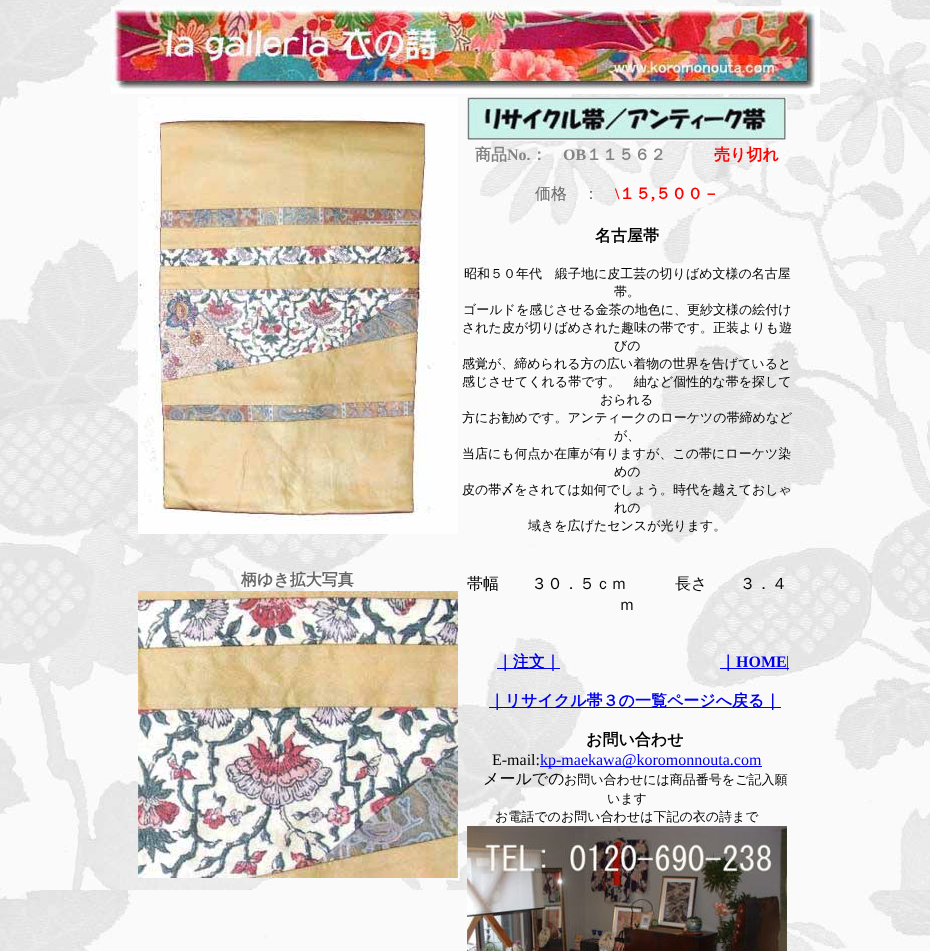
async function draw(canvas) {
  canvas.width = 930
  canvas.height = 951
  const ctx = canvas.getContext('2d')
  ctx.miterLimit = 4
  ctx.fontKerning = 'normal'
  async function loadImage(src) {
    const img = new Image()
    img.src = src
    await img.decode()
    return img
  }

  ctx.fillStyle = '#fff'
  ctx.fillRect(0, 0, 930, 951)
  ctx.drawImage(await loadImage('image0.png'), 0, 0, 930, 951)
  ctx.drawImage(await loadImage('image1.png'), 111, 6, 709, 88)
  ctx.drawImage(await loadImage('image2.png'), 138, 97, 320, 437)
  ctx.font = 'bold 16px WenQuanYi Zen Hei'
  ctx.fillStyle = '#676767'
  ctx.fillText('柄ゆき拡大写真', 241, 585)
  ctx.drawImage(await loadImage('image3.png'), 138, 591, 320, 287)
  ctx.drawImage(await loadImage('image4.png'), 467, 97, 320, 44)
  ctx.fillStyle = '#838383'
  ctx.fillText('商品', 475, 160)
  ctx.font = 'bold 16px Liberation Serif'
  ctx.fillText('No.', 507, 160)
  ctx.font = 'bold 16px WenQuanYi Zen Hei'
  ctx.fillText('：', 531, 160)
  ctx.font = 'bold 16px Liberation Serif'
  ctx.fillText('OB', 563, 160)
  ctx.font = 'bold 16px WenQuanYi Zen Hei'
  ctx.fillText('１１５６２', 586, 160)
  ctx.fillStyle = '#f00'
  ctx.fillText('売り切れ', 714, 160)
  ctx.font = '500 16px WenQuanYi Zen Hei'
  ctx.fillStyle = '#676767'
  ctx.fillText('価格　：', 535, 199)
  ctx.font = 'bold 16px Liberation Serif'
  ctx.fillStyle = '#f00'
  ctx.fillText('\\', 615, 199)
  ctx.font = 'bold 16px WenQuanYi Zen Hei'
  ctx.fillText('１５', 619, 199)
  ctx.font = 'bold 16px Liberation Serif'
  ctx.fillText(',', 651, 199)
  ctx.font = 'bold 16px WenQuanYi Zen Hei'
  ctx.fillText('５００－', 655, 199)
  ctx.fillStyle = '#000'
  ctx.fillText('名古屋帯', 595, 241)
  ctx.font = '500 13px WenQuanYi Zen Hei'
  ctx.fillText('昭和５０年代　緞子地に皮工芸の切りばめ文様の名古屋', 464, 278)
  ctx.fillText('帯。', 614, 296)
  ctx.fillText('ゴールドを感じさせる金茶の地色に、更紗文様の絵付け', 463, 314)
  ctx.fillText('された皮が切りばめされた趣味の帯です。正装よりも遊', 462, 332)
  ctx.fillText('びの', 614, 350)
  ctx.fillText('感覚が、締められる方の広い着物の世界を告げていると', 462, 368)
  ctx.fillText('感じさせてくれる帯です。　紬など個性的な帯を探して', 462, 386)
  ctx.fillText('おられる', 600, 404)
  ctx.fillText('方にお勧めです。アンティークのローケツの帯締めなど', 462, 422)
  ctx.fillText('が、', 614, 440)
  ctx.fillText('当店にも何点か在庫が有りますが、この帯にローケツ染', 462, 458)
  ctx.fillText('めの', 614, 476)
  ctx.fillText('皮の帯〆をされては如何でしょう。時代を越えておしゃ', 462, 494)
  ctx.fillText('れの', 614, 512)
  ctx.fillText('域きを広げたセンスが光ります。', 528, 530)
  ctx.font = '500 16px WenQuanYi Zen Hei'
  ctx.fillText('帯幅　　３０．５ｃｍ　　　長さ　　３．４', 467, 589)
  ctx.fillText('ｍ', 619, 610)
  ctx.fillStyle = '#00e'
  ctx.fillRect(497, 668, 63, 1)
  ctx.font = 'bold 16px WenQuanYi Zen Hei'
  ctx.fillText('｜注文｜', 497, 667)
  ctx.fillRect(720, 668, 69, 1)
  ctx.fillText('｜', 720, 667)
  ctx.font = 'bold 16px Liberation Serif'
  ctx.fillText('HOME', 736, 667)
  ctx.font = '16px Liberation Serif'
  ctx.fillText('|', 786, 667)
  ctx.fillRect(489, 707, 292, 1)
  ctx.font = 'bold 16px WenQuanYi Zen Hei'
  ctx.fillText('｜リサイクル帯３の一覧ページへ戻る｜', 489, 706)
  ctx.fillStyle = '#000'
  ctx.fillText('お問い合わせ', 586, 745)
  ctx.font = '16px Liberation Serif'
  ctx.fillText('E-mail:', 492, 765)
  ctx.fillStyle = '#00e'
  ctx.fillRect(540, 766, 222, 1)
  ctx.fillText('kp-maekawa@koromonnouta.com', 540, 765)
  ctx.font = '500 16px WenQuanYi Zen Hei'
  ctx.fillStyle = '#000'
  ctx.fillText('メールでの', 483, 784)
  ctx.font = '500 13px WenQuanYi Zen Hei'
  ctx.fillText('お問い合わせには商品番号をご記入願', 564, 784)
  ctx.fillText('います', 607, 803)
  ctx.fillText('お電話でのお問い合わせは下記の衣の詩まで', 495, 821)
  ctx.drawImage(await loadImage('image5.png'), 467, 826, 320, 125)
}

draw(document.querySelector('canvas'))
